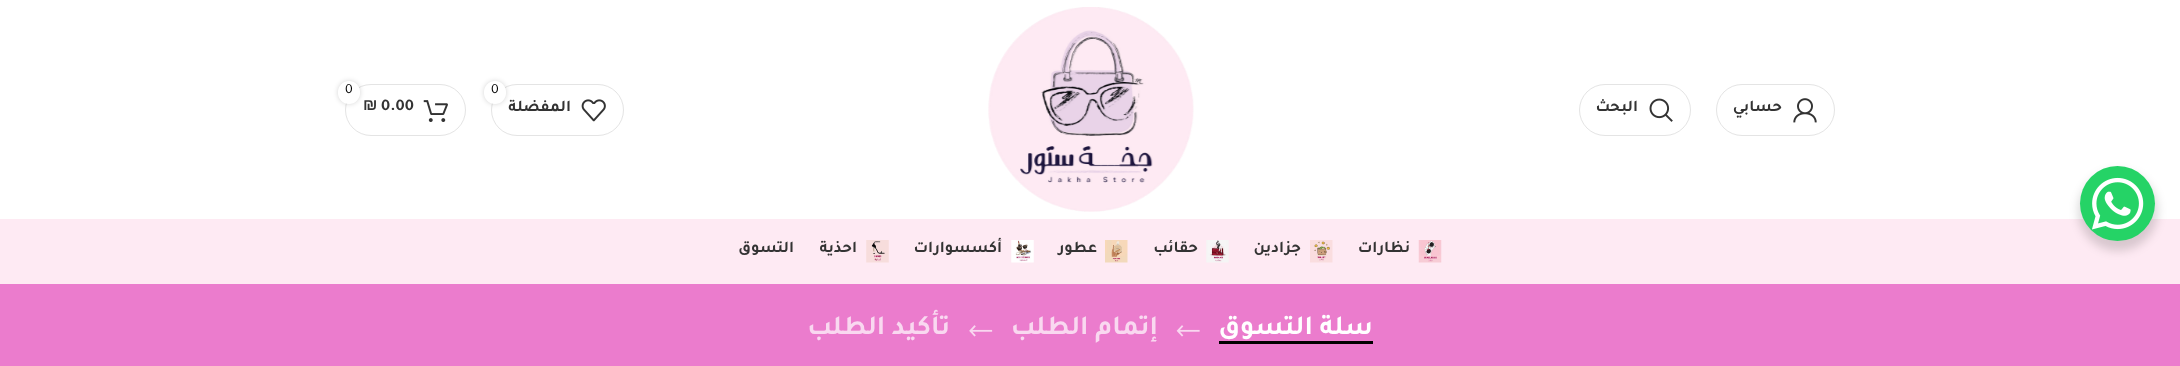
async function draw(canvas) {
  canvas.width = 2180
  canvas.height = 366
  const ctx = canvas.getContext('2d')
  ctx.miterLimit = 4
  ctx.fontKerning = 'normal'
  async function loadImage(src) {
    const img = new Image()
    img.src = src
    await img.decode()
    return img
  }

  ctx.fillStyle = '#fff'
  ctx.fillRect(0, 0, 2180, 366)
  ctx.fillStyle = '#feeaf3'
  ctx.fillRect(0, 219, 2180, 65)
  ctx.fillStyle = '#00000026'
  ctx.filter = 'blur(5px)'
  ctx.beginPath()
  ctx.roundRect(2078, 171, 80, 80, 40)
  ctx.fill()
  ctx.filter = 'none'
  ctx.fillStyle = '#25d366'
  ctx.beginPath()
  ctx.arc(2117.5, 203.5, 37.5, 0, 2 * Math.PI)
  ctx.fill()
  ctx.drawImage(await loadImage('image0.png'), 2092, 177, 52, 53)
  ctx.beginPath()
  ctx.roundRect(1716.5, 84.5, 118, 51, 25.5)
  ctx.strokeStyle = '#e4e4e4'
  ctx.stroke()
  ctx.drawImage(await loadImage('image1.png'), 1793, 98, 24, 25)
  ctx.direction = 'rtl'
  ctx.font = 'bold 16.25px Tajawal'
  ctx.fillStyle = '#333'
  ctx.fillText('حسابي', 1782, 111)
  ctx.beginPath()
  ctx.roundRect(1579.5, 84.5, 111, 51, 25.5)
  ctx.stroke()
  ctx.drawImage(await loadImage('image2.png'), 1649, 98, 24, 24)
  ctx.fillText('البحث', 1638, 111)
  ctx.drawImage(await loadImage('image3.png'), 988, 7, 206, 205)
  ctx.beginPath()
  ctx.roundRect(491.5, 84.5, 132, 51, 25.5)
  ctx.stroke()
  ctx.fillStyle = '#0000002b'
  ctx.filter = 'blur(2.5px)'
  ctx.beginPath()
  ctx.roundRect(484, 81, 22, 23, 11)
  ctx.fill()
  ctx.filter = 'none'
  ctx.fillStyle = '#fff'
  ctx.beginPath()
  ctx.roundRect(484, 81, 22, 23, 11)
  ctx.fill()
  ctx.direction = 'ltr'
  ctx.font = '14px Tajawal'
  ctx.fillStyle = '#000'
  ctx.fillText('0', 491, 93)
  ctx.drawImage(await loadImage('image4.png'), 581, 99, 25, 23)
  ctx.direction = 'rtl'
  ctx.font = 'bold 16.25px Tajawal'
  ctx.fillStyle = '#333'
  ctx.fillText('المفضلة', 571, 111)
  ctx.beginPath()
  ctx.roundRect(345.5, 84.5, 120, 51, 25.5)
  ctx.stroke()
  ctx.fillStyle = '#0000002b'
  ctx.filter = 'blur(2.5px)'
  ctx.beginPath()
  ctx.roundRect(338, 81, 22, 23, 11)
  ctx.fill()
  ctx.filter = 'none'
  ctx.fillStyle = '#fff'
  ctx.beginPath()
  ctx.roundRect(338, 81, 22, 23, 11)
  ctx.fill()
  ctx.direction = 'ltr'
  ctx.font = '14px Tajawal'
  ctx.fillStyle = '#000'
  ctx.fillText('0', 345, 93)
  ctx.drawImage(await loadImage('image5.png'), 423, 100, 25, 22)
  ctx.font = 'bold 16.25px Tajawal'
  ctx.fillStyle = '#333'
  ctx.fillText('0.00', 381, 110)
  ctx.font = 'bold 16.25px Liberation Sans'
  ctx.fillText('₪', 363, 110)
  ctx.drawImage(await loadImage('image6.png'), 1418, 240, 24, 23)
  ctx.direction = 'rtl'
  ctx.font = 'bold 16.25px Tajawal'
  ctx.fillText('نظارات', 1410, 252)
  ctx.drawImage(await loadImage('image7.png'), 1310, 240, 23, 23)
  ctx.fillText('جزادين', 1301, 252)
  ctx.drawImage(await loadImage('image8.png'), 1206, 240, 23, 23)
  ctx.fillText('حقائب', 1198, 252)
  ctx.drawImage(await loadImage('image9.png'), 1105, 240, 23, 23)
  ctx.fillText('عطور', 1097, 252)
  ctx.drawImage(await loadImage('image10.png'), 1011, 240, 23, 23)
  ctx.fillText('أكسسوارات', 1002, 252)
  ctx.drawImage(await loadImage('image11.png'), 866, 240, 23, 23)
  ctx.fillText('احذية', 857, 252)
  ctx.fillText('التسوق', 794, 252)
  ctx.fillStyle = '#eb7ccd'
  ctx.fillRect(0, 284, 2180, 82)
  ctx.font = 'bold 27.5px Tajawal'
  ctx.fillStyle = '#fff'
  ctx.fillText('سلة التسوق', 1373, 334)
  ctx.fillStyle = '#000'
  ctx.fillRect(1219, 341, 154, 3)
  ctx.drawImage(await loadImage('image12.png'), 1176, 325, 24, 12)
  ctx.fillStyle = '#f9d8f0'
  ctx.fillText('إتمام الطلب', 1158, 334)
  ctx.drawImage(await loadImage('image13.png'), 969, 325, 24, 12)
  ctx.fillText('تأكيد الطلب', 950, 334)
}

draw(document.querySelector('canvas'))
